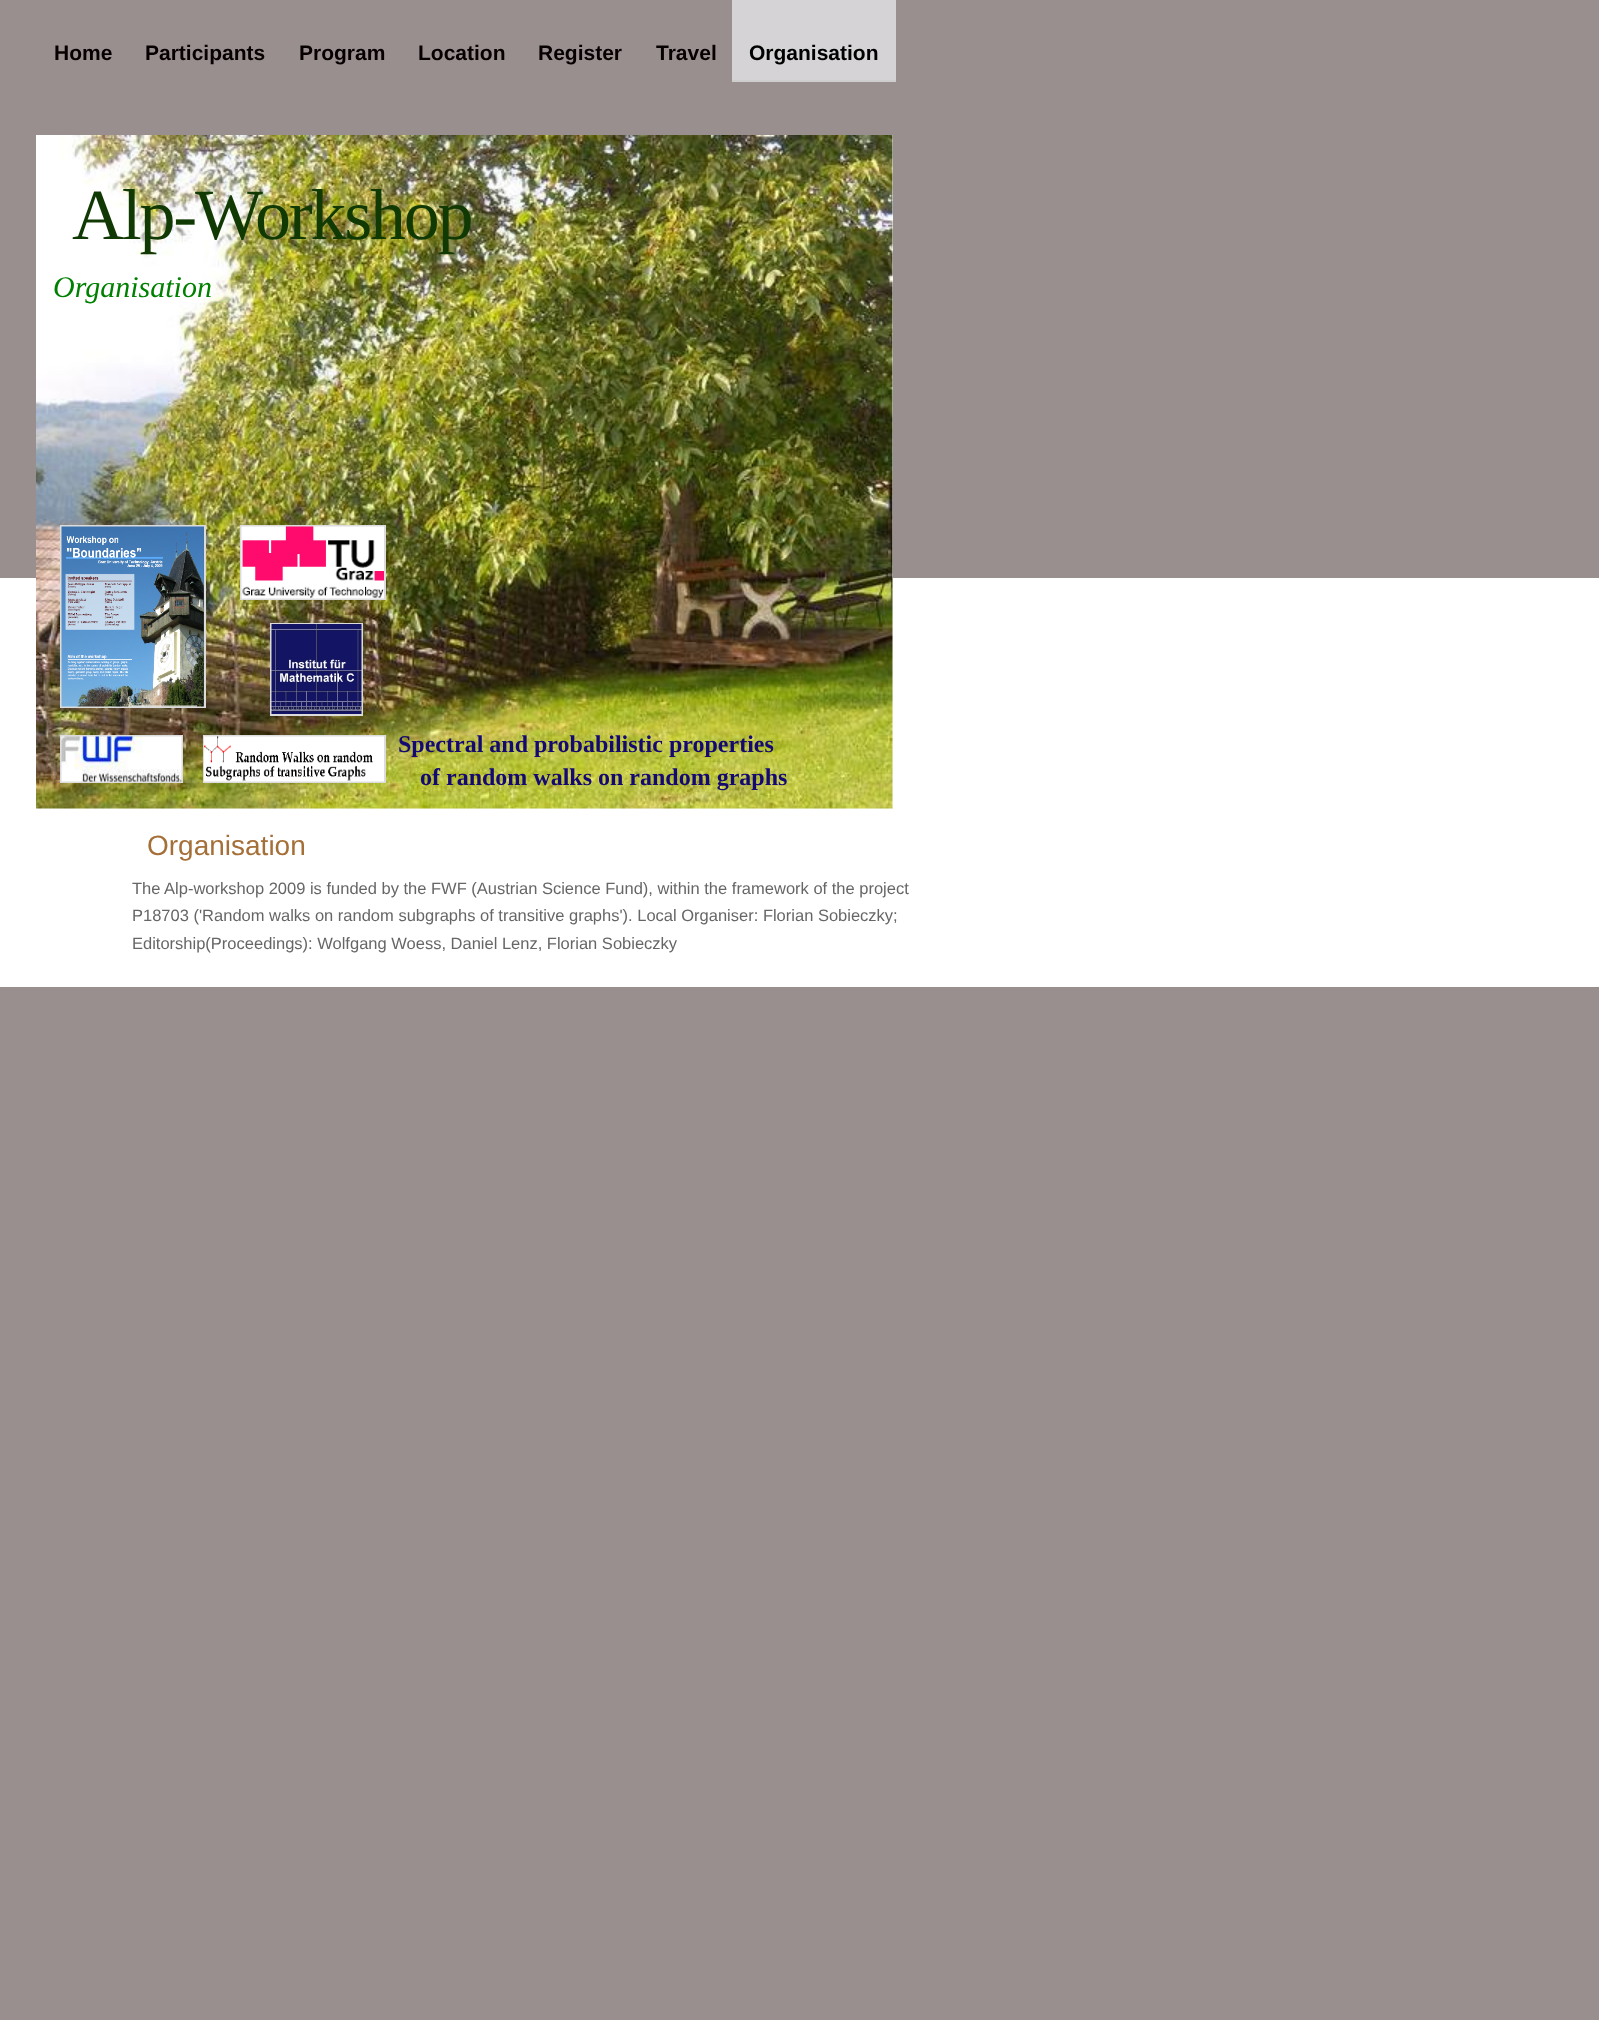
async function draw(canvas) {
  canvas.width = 1599
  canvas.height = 2020
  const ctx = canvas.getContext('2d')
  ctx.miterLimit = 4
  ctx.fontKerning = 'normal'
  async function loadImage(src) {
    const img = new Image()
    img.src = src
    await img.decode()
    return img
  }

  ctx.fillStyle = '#998f8f'
  ctx.fillRect(0, 0, 1599, 2020)
  ctx.font = 'bold 21px Liberation Sans'
  ctx.fillStyle = '#070000'
  ctx.fillText('Home', 54, 60)
  ctx.fillText('Participants', 145, 60)
  ctx.fillText('Program', 299, 60)
  ctx.fillText('Location', 418, 60)
  ctx.fillText('Register', 538, 60)
  ctx.fillText('Travel', 656, 60)
  ctx.fillStyle = '#d5d3d6'
  ctx.fillRect(732, 0, 164, 80)
  ctx.fillStyle = '#cecece'
  ctx.fillRect(732, 80, 164, 2)
  ctx.fillStyle = '#000'
  ctx.fillText('Organisation', 749, 60)
  ctx.fillStyle = '#fff'
  ctx.fillRect(0, 578, 1599, 409)
  ctx.fillStyle = '#fafafa'
  ctx.fillRect(36, 135, 857, 674)
  ctx.drawImage(await loadImage('image0.png'), 36, 135, 857, 674)
  ctx.letterSpacing = '-2.25px'
  ctx.font = '72px Liberation Serif'
  ctx.fillStyle = '#113904'
  ctx.fillText('Alp-Workshop', 72, 239)
  ctx.letterSpacing = '0px'
  ctx.font = 'italic 30px Liberation Serif'
  ctx.fillStyle = '#008000'
  ctx.fillText('Organisation', 53, 297)
  ctx.strokeStyle = '#dcdcdc'
  ctx.lineWidth = 2
  ctx.strokeRect(61, 526, 144, 181)
  ctx.drawImage(await loadImage('image1.png'), 61, 526, 143, 181)
  ctx.strokeRect(241, 526, 144, 73)
  ctx.drawImage(await loadImage('image2.png'), 241, 526, 143, 73)
  ctx.strokeRect(271, 624, 91, 91)
  ctx.drawImage(await loadImage('image3.png'), 271, 624, 91, 90)
  ctx.strokeRect(61, 736, 121, 46)
  ctx.drawImage(await loadImage('image4.png'), 61, 736, 121, 46)
  ctx.strokeRect(204, 736, 181, 46)
  ctx.drawImage(await loadImage('image5.png'), 204, 736, 180, 46)
  ctx.font = 'bold 24px Liberation Serif'
  ctx.fillStyle = '#140872'
  ctx.fillText('Spectral and probabilistic properties', 398, 752)
  ctx.fillText('of random walks on random graphs', 420, 785)
  ctx.font = '28px Liberation Sans'
  ctx.fillStyle = '#a56f38'
  ctx.fillText('Organisation', 147, 855)
  ctx.font = '16.5px Liberation Sans'
  ctx.fillStyle = '#666'
  ctx.fillText('The Alp-workshop 2009 is funded by the FWF (Austrian Science Fund), within the framework of the project', 132, 894)
  ctx.fillText('P18703 (\'Random walks on random subgraphs of transitive graphs\'). Local Organiser: Florian Sobieczky;', 132, 921)
  ctx.fillText('Editorship(Proceedings): Wolfgang Woess, Daniel Lenz, Florian Sobieczky', 132, 949)
}

draw(document.querySelector('canvas'))
